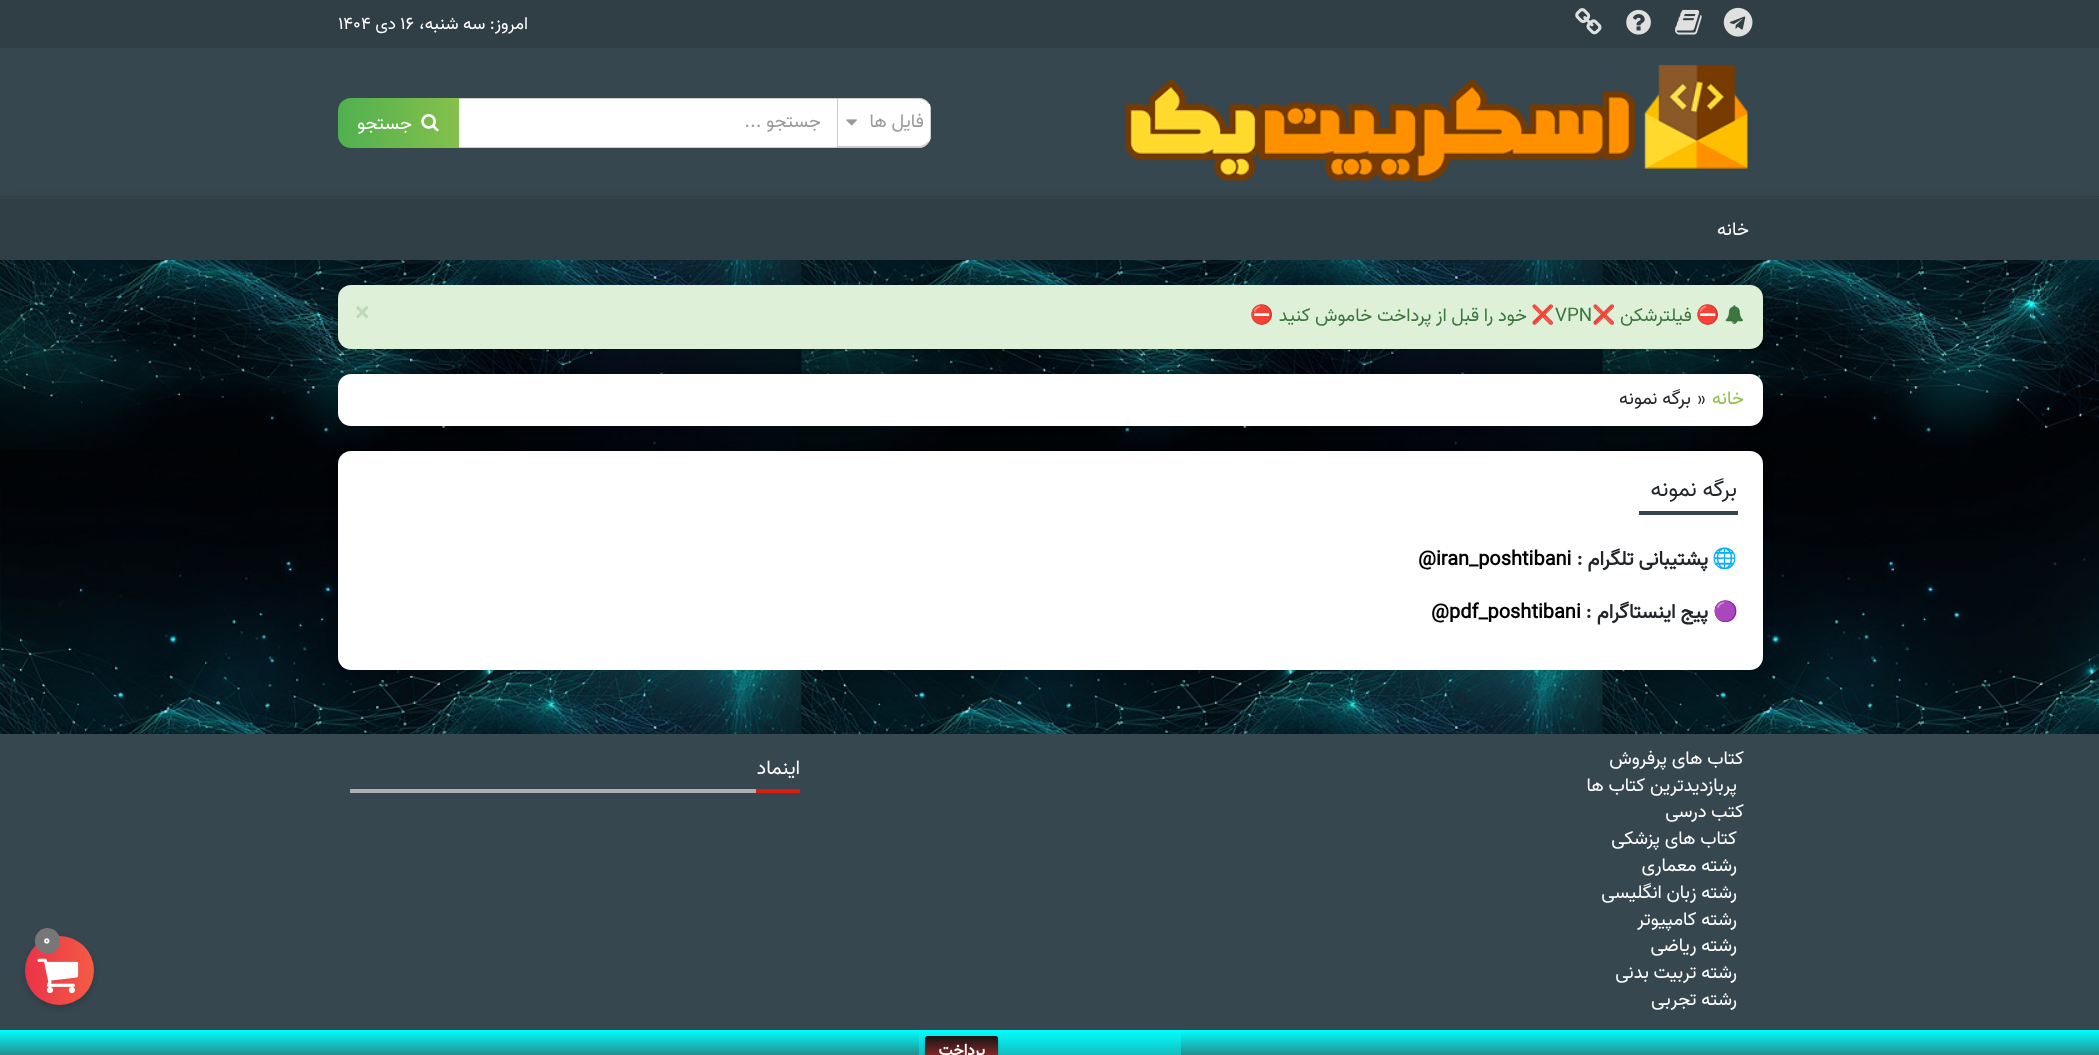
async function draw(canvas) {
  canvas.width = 2099
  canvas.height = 1055
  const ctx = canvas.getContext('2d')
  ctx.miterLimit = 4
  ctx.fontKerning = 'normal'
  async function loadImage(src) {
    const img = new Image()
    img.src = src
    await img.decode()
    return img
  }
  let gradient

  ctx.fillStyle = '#fff'
  ctx.fillRect(0, 0, 2099, 1055)
  ctx.drawImage(await loadImage('image0.png'), 0, 260, 2099, 474)
  ctx.fillStyle = '#37474f'
  ctx.fillRect(0, 48, 2099, 150)
  ctx.fillStyle = '#303f46'
  ctx.fillRect(0, 0, 2099, 48)
  ctx.drawImage(await loadImage('image1.png'), 1723, 7, 30, 30)
  ctx.drawImage(await loadImage('image2.png'), 1675, 9, 27, 26)
  ctx.drawImage(await loadImage('image3.png'), 1626, 9, 25, 26)
  ctx.drawImage(await loadImage('image4.png'), 1575, 8, 27, 27)
  ctx.direction = 'rtl'
  ctx.font = '17.5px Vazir'
  ctx.fillStyle = '#fff'
  ctx.fillText('امروز: سه شنبه،', 528, 29)
  ctx.direction = 'ltr'
  ctx.fillText('۱۶', 400, 29)
  ctx.direction = 'rtl'
  ctx.fillText('دی', 396, 29)
  ctx.direction = 'ltr'
  ctx.fillText('۱۴۰۴', 338, 29)
  ctx.fillStyle = '#303f46'
  ctx.fillRect(0, 196, 2099, 1)
  ctx.fillStyle = '#0000001f'
  ctx.filter = 'blur(12.5px)'
  ctx.beginPath()
  ctx.rect(8, 213, 2085, 47)
  ctx.fill()
  ctx.filter = 'none'
  ctx.drawImage(await loadImage('image5.png'), 1124, 64, 624, 118)
  ctx.fillStyle = '#fff'
  ctx.beginPath()
  ctx.roundRect(838, 98, 93, 50, [0, 13, 13, 0])
  ctx.fill()
  ctx.fillStyle = '#ccc'
  ctx.beginPath()
  ctx.moveTo(838, 98)
  ctx.lineTo(919, 98)
  ctx.bezierCurveTo(926, 98, 931, 103, 931, 110)
  ctx.lineTo(931, 135)
  ctx.bezierCurveTo(931, 142, 926, 148, 919, 148)
  ctx.lineTo(838, 148)
  ctx.closePath()
  ctx.moveTo(838, 99)
  ctx.lineTo(919, 99)
  ctx.bezierCurveTo(925, 99, 930, 104, 930, 110)
  ctx.lineTo(930, 135)
  ctx.bezierCurveTo(930, 141, 925, 146, 919, 146)
  ctx.lineTo(838, 146)
  ctx.closePath()
  ctx.fill('evenodd')
  ctx.fillStyle = '#fff'
  ctx.fillRect(928, 104, 2, 37)
  ctx.direction = 'rtl'
  ctx.font = '18.75px Vazir'
  ctx.fillStyle = '#999'
  ctx.fillText('فایل ها', 924, 127)
  ctx.drawImage(await loadImage('image6.png'), 846, 119, 11, 7)
  ctx.fillStyle = '#fff'
  ctx.beginPath()
  ctx.rect(458.5, 98.5, 379, 49)
  ctx.fill()
  ctx.strokeStyle = '#ccc'
  ctx.stroke()
  ctx.fillStyle = '#999'
  ctx.fillText('جستجو ...', 821, 127)
  gradient = ctx.createLinearGradient(338, 123, 580, 123)
  gradient.addColorStop(0, '#50b04f')
  gradient.addColorStop(0.51, '#86c14b')
  gradient.addColorStop(1, '#86c14b')
  ctx.fillStyle = gradient
  ctx.beginPath()
  ctx.roundRect(338, 98, 121, 50, [13, 0, 0, 13])
  ctx.fill()
  ctx.drawImage(await loadImage('image7.png'), 421, 114, 18, 18)
  ctx.fillStyle = '#fff'
  ctx.fillText('جستجو', 412, 129)
  ctx.fillStyle = '#303f46'
  ctx.fillRect(0, 198, 2099, 62)
  ctx.fillStyle = '#fff'
  ctx.fillText('خانه', 1749, 235)
  ctx.fillStyle = '#0000001a'
  ctx.filter = 'blur(6px)'
  ctx.beginPath()
  ctx.roundRect(338, 285, 1425, 64, 13)
  ctx.fill()
  ctx.filter = 'none'
  ctx.fillStyle = '#dff0d8'
  ctx.beginPath()
  ctx.roundRect(338, 285, 1425, 64, 13)
  ctx.fill()
  ctx.drawImage(await loadImage('image8.png'), 1725, 305, 18, 19)
  ctx.font = '18.75px Noto Color Emoji'
  ctx.fillStyle = '#3c763d'
  ctx.fillText('⛔', 1720, 321)
  ctx.font = '18.75px Vazir'
  ctx.fillText('فیلترشکن', 1692, 321)
  ctx.direction = 'ltr'
  ctx.font = '18.75px Noto Color Emoji'
  ctx.fillText('❌', 1592, 321)
  ctx.font = '18.75px Vazir'
  ctx.fillText('VPN', 1555, 321)
  ctx.direction = 'rtl'
  ctx.font = '18.75px Noto Color Emoji'
  ctx.fillText('❌', 1555, 321)
  ctx.font = '18.75px Vazir'
  ctx.fillText('خود را قبل از پرداخت خاموش کنید', 1527, 321)
  ctx.font = '18.75px Noto Color Emoji'
  ctx.fillText('⛔', 1274, 321)
  ctx.direction = 'ltr'
  ctx.font = 'bold 26px Vazir'
  ctx.fillStyle = '#bed8b9'
  ctx.fillText('×', 355, 321)
  ctx.fillStyle = '#0000001a'
  ctx.filter = 'blur(6px)'
  ctx.beginPath()
  ctx.roundRect(338, 374, 1425, 52, 13)
  ctx.fill()
  ctx.filter = 'none'
  ctx.fillStyle = '#fff'
  ctx.beginPath()
  ctx.roundRect(338, 374, 1425, 52, 13)
  ctx.fill()
  ctx.direction = 'rtl'
  ctx.font = '18.75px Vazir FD'
  ctx.fillStyle = '#8bc34a'
  ctx.fillText('خانه', 1744, 404)
  ctx.direction = 'ltr'
  ctx.fillStyle = '#212529'
  ctx.fillText('»', 1697, 404)
  ctx.direction = 'rtl'
  ctx.fillText('برگه نمونه', 1691, 404)
  ctx.fillStyle = '#0000001a'
  ctx.filter = 'blur(6px)'
  ctx.beginPath()
  ctx.roundRect(338, 451, 1425, 219, 13)
  ctx.fill()
  ctx.filter = 'none'
  ctx.fillStyle = '#fff'
  ctx.beginPath()
  ctx.roundRect(338, 451, 1425, 219, 13)
  ctx.fill()
  ctx.fillStyle = '#37474f'
  ctx.fillRect(1639, 511, 99, 4)
  ctx.font = '22.5px Vazir'
  ctx.fillStyle = '#212529'
  ctx.fillText('برگه نمونه', 1737, 496)
  ctx.font = 'bold 20px Noto Color Emoji'
  ctx.fillText('🌐', 1737, 565)
  ctx.font = 'bold 20px Vazir'
  ctx.fillText('پشتیبانی تلگرام :', 1708, 565)
  ctx.direction = 'ltr'
  ctx.fillStyle = '#000'
  ctx.fillText('@iran_poshtibani', 1418, 565)
  ctx.direction = 'rtl'
  ctx.font = 'bold 20px Noto Color Emoji'
  ctx.fillStyle = '#212529'
  ctx.fillText('🟣', 1738, 618)
  ctx.font = 'bold 20px Vazir'
  ctx.fillText('پیج اینستاگرام :', 1708, 618)
  ctx.direction = 'ltr'
  ctx.fillStyle = '#000'
  ctx.fillText('@pdf_poshtibani', 1431, 618)
  ctx.fillStyle = '#0000001f'
  ctx.filter = 'blur(12.5px)'
  ctx.beginPath()
  ctx.rect(8, 734, 2085, 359)
  ctx.fill()
  ctx.filter = 'none'
  ctx.fillStyle = '#37474f'
  ctx.fillRect(0, 734, 2099, 296)
  ctx.direction = 'rtl'
  ctx.font = '18.75px Vazir'
  ctx.fillStyle = '#fff'
  ctx.fillText('کتاب های پرفروش', 1744, 764)
  ctx.fillText('پربازدیدترین کتاب ها', 1737, 791)
  ctx.fillText('کتب درسی', 1744, 817)
  ctx.fillText('کتاب های پزشکی', 1737, 844)
  ctx.fillText('رشته معماری', 1737, 871)
  ctx.fillText('رشته زبان انگلیسی', 1737, 898)
  ctx.fillText('رشته کامپیوتر', 1737, 925)
  ctx.fillText('رشته ریاضی', 1737, 951)
  ctx.fillText('رشته تربیت بدنی', 1737, 978)
  ctx.fillText('رشته تجربی', 1737, 1005)
  ctx.fillStyle = '#afafaf'
  ctx.fillRect(350, 789, 406, 4)
  ctx.fillStyle = '#da1d0f'
  ctx.fillRect(756, 789, 44, 4)
  ctx.font = '20px Vazir'
  ctx.fillStyle = '#fff'
  ctx.fillText('اینماد', 800, 774)
  ctx.fillStyle = '#00000029'
  ctx.filter = 'blur(3px)'
  ctx.beginPath()
  ctx.roundRect(25, 939, 69, 69, 34.5)
  ctx.fill()
  ctx.filter = 'none'
  gradient = ctx.createLinearGradient(25, 971, 163, 971)
  gradient.addColorStop(0, '#eb3349')
  gradient.addColorStop(0.51, '#f45c43')
  gradient.addColorStop(1, '#eb3349')
  ctx.fillStyle = gradient
  ctx.beginPath()
  ctx.arc(59.5, 970.5, 34.5, 0, 2 * Math.PI)
  ctx.fill()
  ctx.drawImage(await loadImage('image9.png'), 37, 958, 42, 36)
  ctx.fillStyle = '#777'
  ctx.beginPath()
  ctx.roundRect(35, 928, 25, 26, 12.5)
  ctx.fill()
  ctx.direction = 'ltr'
  ctx.font = 'bold 16px Vazir FD'
  ctx.fillStyle = '#fff'
  ctx.fillText('0', 43, 945)
  gradient = ctx.createLinearGradient(1050, 1030, 1050, 1055)
  gradient.addColorStop(0, '#0ff')
  gradient.addColorStop(1, '#248e8e')
  ctx.fillStyle = gradient
  ctx.fillRect(0, 1030, 2099, 25)
  gradient = ctx.createLinearGradient(1050, 1030, 1050, 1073)
  gradient.addColorStop(0, '#0ff')
  gradient.addColorStop(1, '#248e8e')
  ctx.fillStyle = gradient
  ctx.fillRect(919, 1031, 262, 24)
  ctx.fillStyle = '#00000033'
  ctx.filter = 'blur(1px)'
  ctx.beginPath()
  ctx.roundRect(925, 1038, 73, 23, 2.5)
  ctx.fill()
  ctx.filter = 'none'
  gradient = ctx.createLinearGradient(961, 1036, 961, 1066)
  gradient.addColorStop(0, '#181515')
  gradient.addColorStop(1, '#bb3131')
  ctx.fillStyle = gradient
  ctx.beginPath()
  ctx.roundRect(925, 1036, 73, 19, [2.5, 2.5, 0, 0])
  ctx.fill()
  ctx.direction = 'rtl'
  ctx.font = 'bold 16px Vazir'
  ctx.fillStyle = '#fff'
  ctx.fillText('پرداخت', 985, 1055)
}

draw(document.querySelector('canvas'))
